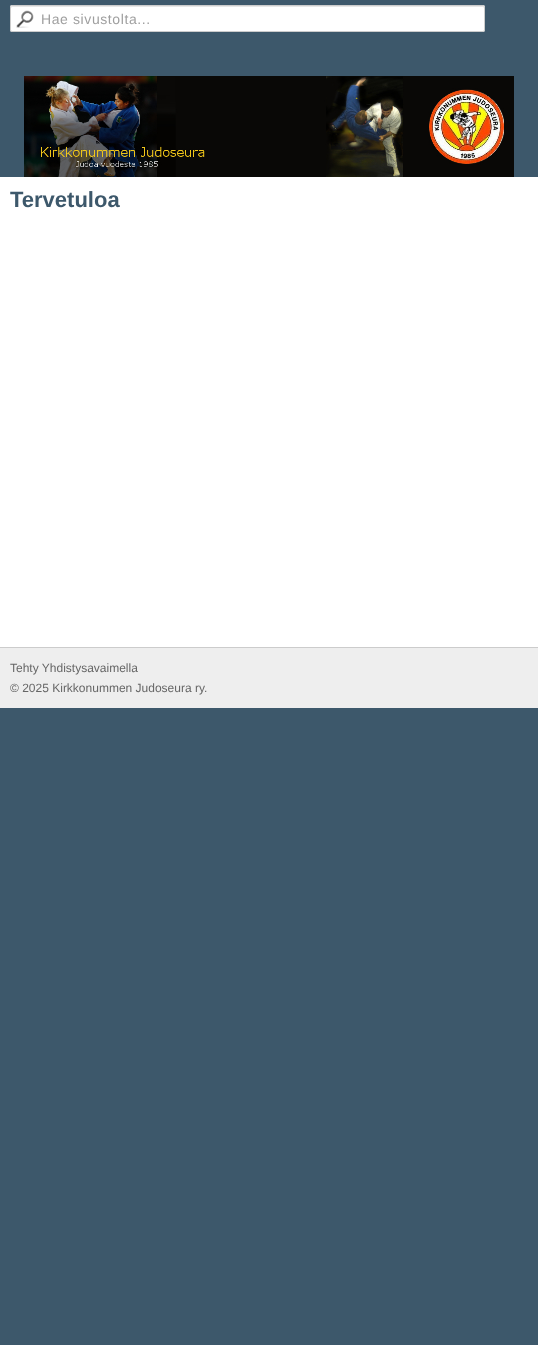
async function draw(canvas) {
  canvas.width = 538
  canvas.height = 1345
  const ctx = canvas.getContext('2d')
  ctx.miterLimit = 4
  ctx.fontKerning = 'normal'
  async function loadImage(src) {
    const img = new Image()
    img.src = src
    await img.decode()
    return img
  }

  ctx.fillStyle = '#3d586b'
  ctx.fillRect(0, 0, 538, 1345)
  ctx.fillStyle = '#fff'
  ctx.beginPath()
  ctx.roundRect(10, 5, 475, 27, 2)
  ctx.fill()
  ctx.drawImage(await loadImage('image0.png'), 16, 10, 18, 18)
  ctx.fillStyle = '#e6e6e6'
  ctx.beginPath()
  ctx.moveTo(12, 7)
  ctx.lineTo(483, 7)
  ctx.lineTo(484, 8)
  ctx.bezierCurveTo(484, 7, 484, 6, 483, 6)
  ctx.lineTo(12, 6)
  ctx.lineTo(11, 7)
  ctx.lineTo(11, 8)
  ctx.closePath()
  ctx.moveTo(484, 30)
  ctx.lineTo(484, 30)
  ctx.closePath()
  ctx.fill('evenodd')
  ctx.beginPath()
  ctx.roundRect(10.5, 5.5, 474, 26, 1.5)
  ctx.strokeStyle = '#ccc'
  ctx.stroke()
  ctx.letterSpacing = '0.6px'
  ctx.font = '14px Liberation Sans'
  ctx.fillStyle = '#9f9f9f'
  ctx.fillText('Hae sivustolta...', 41, 24)
  ctx.drawImage(await loadImage('image1.png'), 24, 76, 490, 101)
  ctx.fillStyle = '#fff'
  ctx.fillRect(0, 177, 538, 470)
  ctx.letterSpacing = '0px'
  ctx.font = 'bold 22px Liberation Sans'
  ctx.fillStyle = '#3d586b'
  ctx.fillText('Tervetuloa', 10, 207)
  ctx.fillStyle = '#eee'
  ctx.fillRect(0, 648, 538, 60)
  ctx.fillStyle = '#ccc'
  ctx.fillRect(0, 647, 538, 1)
  ctx.font = '12px Liberation Sans'
  ctx.fillStyle = '#666'
  ctx.fillText('Tehty Yhdistysavaimella', 10, 672)
  ctx.fillText('© 2025 Kirkkonummen Judoseura ry.', 10, 692)
}

draw(document.querySelector('canvas'))
